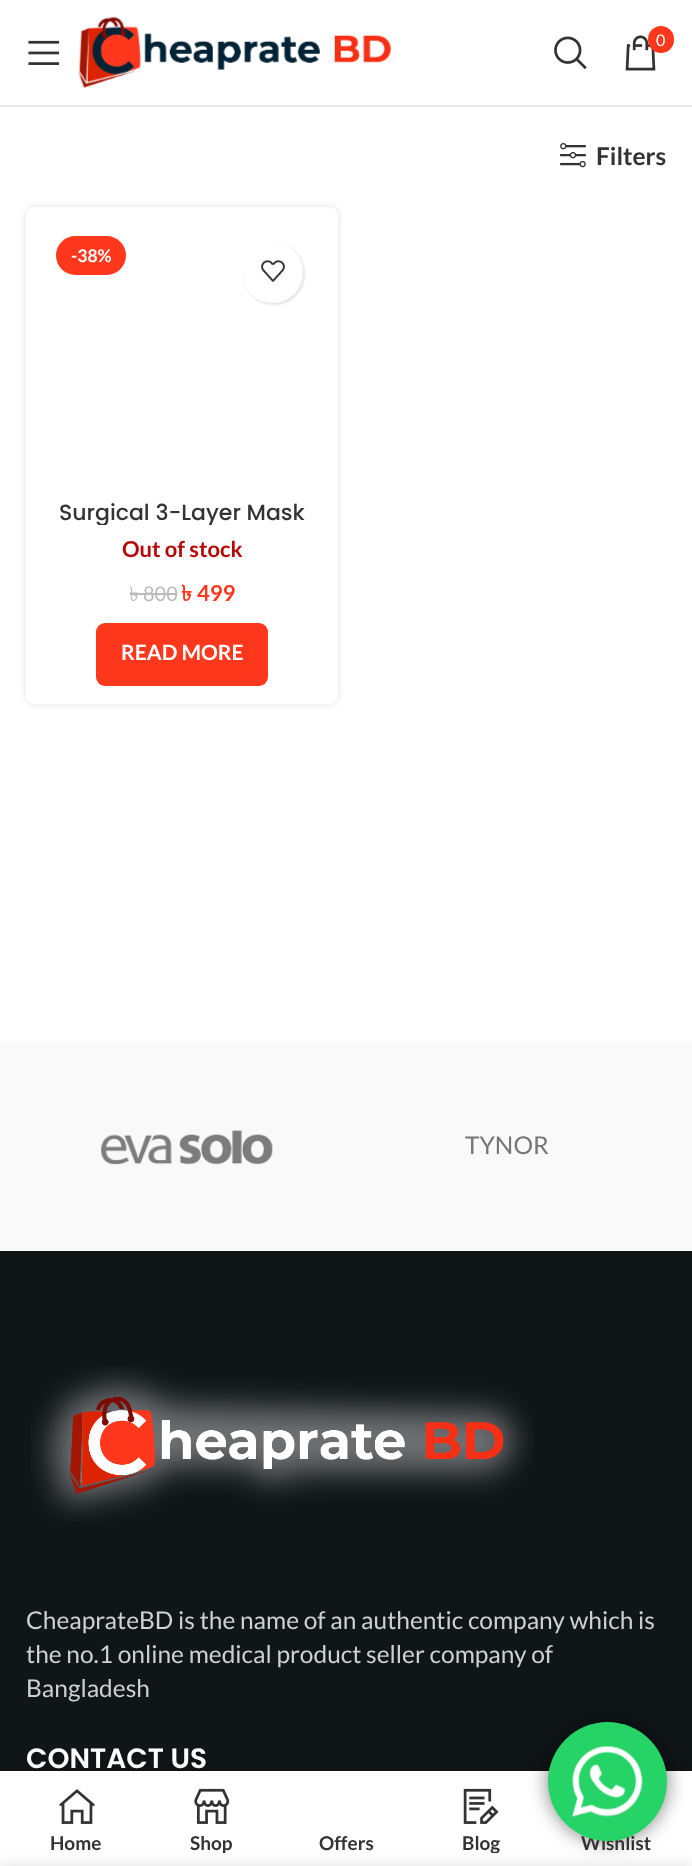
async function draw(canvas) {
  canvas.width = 692
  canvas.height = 1866
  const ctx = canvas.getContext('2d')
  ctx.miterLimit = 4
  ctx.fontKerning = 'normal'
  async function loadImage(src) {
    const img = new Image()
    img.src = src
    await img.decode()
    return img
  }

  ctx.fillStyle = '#fff'
  ctx.fillRect(0, 0, 692, 1866)
  ctx.fillStyle = '#e8e8e8'
  ctx.fillRect(0, 105, 692, 2)
  ctx.drawImage(await loadImage('image0.png'), 28, 40, 32, 25)
  ctx.drawImage(await loadImage('image1.png'), 78, 16, 313, 72)
  ctx.drawImage(await loadImage('image2.png'), 554, 36, 33, 34)
  ctx.drawImage(await loadImage('image3.png'), 625, 35, 31, 36)
  ctx.fillStyle = '#ff381d'
  ctx.beginPath()
  ctx.roundRect(648, 26, 26, 27, 13)
  ctx.fill()
  ctx.font = '16px Lato'
  ctx.fillStyle = '#fff'
  ctx.fillText('0', 656, 46)
  ctx.drawImage(await loadImage('image4.png'), 560, 143, 26, 25)
  ctx.font = 'bold 24.5px Lato'
  ctx.fillStyle = '#333'
  ctx.fillText('Filters', 596, 165)
  ctx.save()
  ctx.beginPath()
  ctx.moveTo(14, 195)
  ctx.lineTo(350, 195)
  ctx.lineTo(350, 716)
  ctx.lineTo(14, 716)
  ctx.closePath()
  ctx.moveTo(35, 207)
  ctx.lineTo(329, 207)
  ctx.bezierCurveTo(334, 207, 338, 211, 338, 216)
  ctx.lineTo(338, 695)
  ctx.bezierCurveTo(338, 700, 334, 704, 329, 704)
  ctx.lineTo(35, 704)
  ctx.bezierCurveTo(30, 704, 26, 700, 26, 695)
  ctx.lineTo(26, 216)
  ctx.bezierCurveTo(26, 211, 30, 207, 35, 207)
  ctx.closePath()
  ctx.clip('evenodd')
  ctx.fillStyle = '#0000001f'
  ctx.filter = 'blur(3.5px)'
  ctx.beginPath()
  ctx.roundRect(26, 207, 312, 497, 9)
  ctx.fill()
  ctx.filter = 'none'
  ctx.restore()
  ctx.fillStyle = '#ff381d'
  ctx.beginPath()
  ctx.roundRect(56, 236, 70, 39, 19.5)
  ctx.fill()
  ctx.font = 'bold 17.5px Lato'
  ctx.fillStyle = '#fff'
  ctx.fillText('-38%', 71, 262)
  ctx.fillStyle = '#0000001a'
  ctx.filter = 'blur(1px)'
  ctx.beginPath()
  ctx.roundRect(243, 243, 62, 62, 31)
  ctx.fill()
  ctx.filter = 'none'
  ctx.fillStyle = '#fff'
  ctx.beginPath()
  ctx.arc(272.5, 272.5, 30.5, 0, 2 * Math.PI)
  ctx.fill()
  ctx.drawImage(await loadImage('image5.png'), 261, 260, 24, 22)
  ctx.save()
  ctx.beginPath()
  ctx.rect(44, 499, 276, 26)
  ctx.clip()
  ctx.font = '500 22px Poppins'
  ctx.fillStyle = '#333'
  ctx.fillText('Surgical 3-Layer Mask', 59, 520)
  ctx.restore()
  ctx.font = 'bold 22px Lato'
  ctx.fillStyle = '#b50808'
  ctx.fillText('Out of stock', 122, 557)
  ctx.font = '20px Lohit Bengali'
  ctx.fillStyle = '#bbb'
  ctx.fillText('৳', 129, 601)
  ctx.fillRect(130, 593, 14, 2)
  ctx.font = '20px Lato'
  ctx.fillText('800', 143, 601)
  ctx.fillRect(144, 593, 33, 2)
  ctx.font = 'bold 22px Lohit Bengali'
  ctx.fillStyle = '#ff381d'
  ctx.fillText('৳', 181, 601)
  ctx.font = 'bold 22px Lato'
  ctx.fillText('499', 197, 601)
  ctx.beginPath()
  ctx.roundRect(96, 623, 172, 63, 9)
  ctx.fill()
  ctx.font = 'bold 21px Lato'
  ctx.fillStyle = '#fff'
  ctx.fillText('READ MORE', 121, 660)
  ctx.fillStyle = '#f9f9f9'
  ctx.fillRect(0, 1041, 692, 210)
  ctx.drawImage(await loadImage('image6.png'), 101, 1130, 172, 35)
  ctx.font = '24.5px Lato'
  ctx.fillStyle = '#767676'
  ctx.fillText('TYNOR', 465, 1154)
  ctx.fillStyle = '#101518'
  ctx.fillRect(0, 1251, 692, 520)
  ctx.drawImage(await loadImage('image7.png'), 31, 1366, 503, 156)
  ctx.fillStyle = '#cfd0d1'
  ctx.fillText('CheaprateBD is the name of an authentic company which is', 26, 1629)
  ctx.fillText('the no.1 online medical product seller company of', 26, 1663)
  ctx.fillText('Bangladesh', 26, 1697)
  ctx.font = '600 28px Poppins'
  ctx.fillStyle = '#fff'
  ctx.fillText('CONTACT US', 26, 1768)
  ctx.fillStyle = '#0000001f'
  ctx.filter = 'blur(8px)'
  ctx.beginPath()
  ctx.rect(0, 1771, 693, 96)
  ctx.fill()
  ctx.filter = 'none'
  ctx.fillStyle = '#fff'
  ctx.fillRect(0, 1771, 692, 95)
  ctx.fillStyle = '#00000080'
  ctx.filter = 'blur(9.5px)'
  ctx.beginPath()
  ctx.roundRect(548, 1722, 119, 119, 59.5)
  ctx.fill()
  ctx.filter = 'none'
  ctx.font = 'bold 19px Lato'
  ctx.fillStyle = '#333'
  ctx.fillText('Wishlist', 581, 1850)
  ctx.fillStyle = '#25d366'
  ctx.beginPath()
  ctx.arc(607.5, 1781.5, 59.5, 0, 2 * Math.PI)
  ctx.fill()
  ctx.drawImage(await loadImage('image8.png'), 572, 1746, 71, 71)
  ctx.drawImage(await loadImage('image9.png'), 59, 1789, 36, 35)
  ctx.fillStyle = '#333'
  ctx.fillText('Home', 50, 1850)
  ctx.drawImage(await loadImage('image10.png'), 194, 1788, 36, 36)
  ctx.save()
  ctx.beginPath()
  ctx.rect(161, 1831, 100, 22)
  ctx.clip()
  ctx.fillText('Shop', 190, 1850)
  ctx.restore()
  ctx.fillText('Offers', 319, 1850)
  ctx.drawImage(await loadImage('image11.png'), 463, 1788, 36, 36)
  ctx.save()
  ctx.beginPath()
  ctx.rect(432, 1831, 100, 22)
  ctx.clip()
  ctx.fillText('Blog', 462, 1850)
  ctx.restore()
  ctx.fillStyle = '#00000024'
  ctx.filter = 'blur(8px)'
  ctx.beginPath()
  ctx.rect(0, 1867, 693, 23)
  ctx.fill()
  ctx.filter = 'none'
}

draw(document.querySelector('canvas'))
